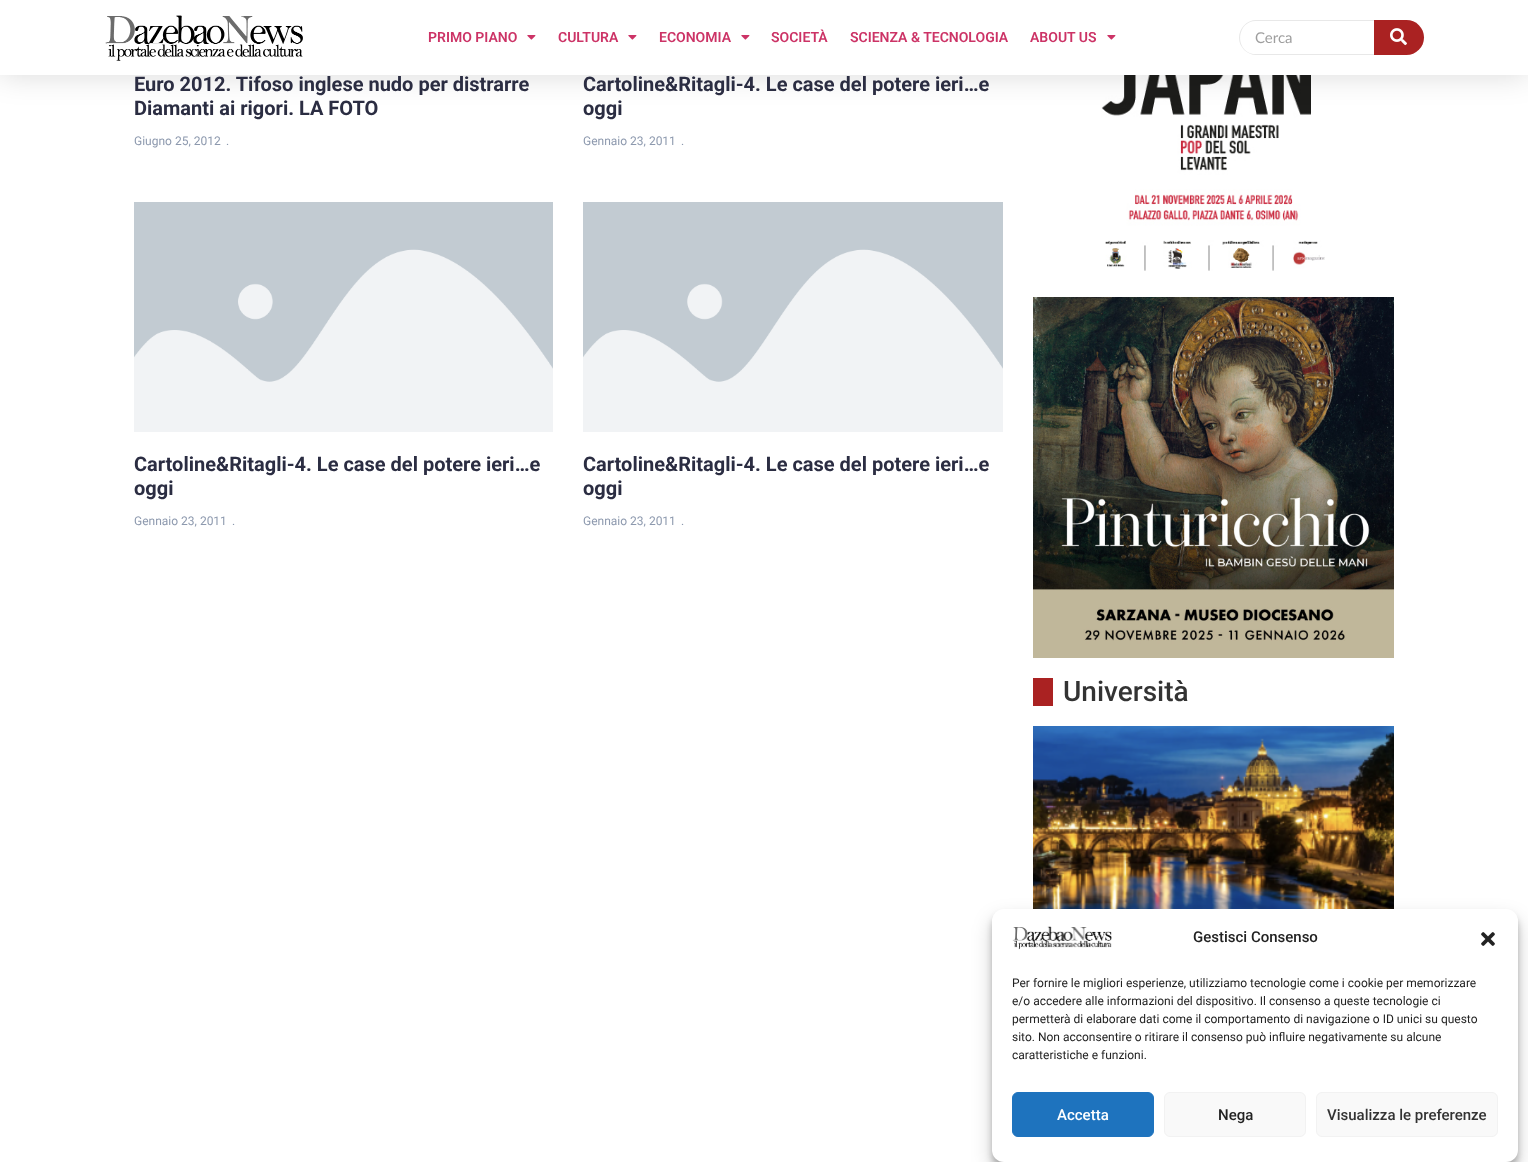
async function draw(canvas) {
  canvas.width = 1528
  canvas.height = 1162
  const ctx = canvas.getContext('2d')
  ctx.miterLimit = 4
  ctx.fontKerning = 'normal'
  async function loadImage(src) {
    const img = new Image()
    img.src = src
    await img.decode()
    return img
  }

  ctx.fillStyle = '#fff'
  ctx.fillRect(0, 0, 1528, 1162)
  ctx.drawImage(await loadImage('image5.png'), 1101, 75, 224, 196)
  ctx.fillStyle = '#00000026'
  ctx.filter = 'blur(15px)'
  ctx.beginPath()
  ctx.rect(0, 0, 1528, 75)
  ctx.fill()
  ctx.filter = 'none'
  ctx.fillStyle = '#fff'
  ctx.fillRect(0, 0, 1528, 75)
  ctx.drawImage(await loadImage('image0.png'), 105, 15, 198, 46)
  ctx.font = '600 14px Roboto'
  ctx.fillStyle = '#c36'
  ctx.fillText('PRIMO PIANO', 428, 42)
  ctx.drawImage(await loadImage('image1.png'), 527, 35, 9, 5)
  ctx.fillText('CULTURA', 558, 42)
  ctx.drawImage(await loadImage('image1.png'), 628, 35, 9, 5)
  ctx.fillText('ECONOMIA', 659, 42)
  ctx.drawImage(await loadImage('image1.png'), 741, 35, 9, 5)
  ctx.fillText('SOCIETÀ', 771, 42)
  ctx.fillText('SCIENZA & TECNOLOGIA', 850, 42)
  ctx.fillText('ABOUT US', 1030, 42)
  ctx.drawImage(await loadImage('image1.png'), 1107, 35, 9, 5)
  ctx.fillStyle = '#e8e8e8'
  ctx.beginPath()
  ctx.moveTo(1256, 20)
  ctx.lineTo(1374, 20)
  ctx.lineTo(1374, 55)
  ctx.lineTo(1256, 55)
  ctx.bezierCurveTo(1247, 55, 1239, 47, 1239, 38)
  ctx.bezierCurveTo(1239, 28, 1247, 20, 1256, 20)
  ctx.closePath()
  ctx.moveTo(1256, 21)
  ctx.lineTo(1374, 21)
  ctx.lineTo(1374, 54)
  ctx.lineTo(1253, 54)
  ctx.bezierCurveTo(1234, 50, 1237, 21, 1256, 21)
  ctx.closePath()
  ctx.fill('evenodd')
  ctx.font = '15px Lato'
  ctx.fillStyle = '#9e9e9e'
  ctx.fillText('Cerca', 1255, 43)
  ctx.fillStyle = '#a22'
  ctx.beginPath()
  ctx.roundRect(1374, 20, 50, 35, [0, 17.5, 17.5, 0])
  ctx.fill()
  ctx.drawImage(await loadImage('image2.png'), 1390, 28, 17, 18)
  ctx.font = 'bold 20px Roboto'
  ctx.fillStyle = '#2b2d42'
  ctx.fillText('Euro 2012. Tifoso inglese nudo per distrarre', 134, 91)
  ctx.fillText('Diamanti ai rigori. LA FOTO', 134, 115)
  ctx.font = '12px Roboto'
  ctx.fillStyle = '#8d99ae'
  ctx.fillText('Giugno 25, 2012', 134, 145)
  ctx.fillText('.', 226, 145)
  ctx.font = 'bold 20px Roboto'
  ctx.fillStyle = '#2b2d42'
  ctx.fillText('Cartoline&Ritagli-4. Le case del potere ieri…e', 583, 91)
  ctx.fillText('oggi', 583, 115)
  ctx.font = '12px Roboto'
  ctx.fillStyle = '#8d99ae'
  ctx.fillText('Gennaio 23, 2011', 583, 145)
  ctx.fillText('.', 681, 145)
  ctx.drawImage(await loadImage('image3.png'), 134, 202, 419, 230)
  ctx.font = 'bold 20px Roboto'
  ctx.fillStyle = '#2b2d42'
  ctx.fillText('Cartoline&Ritagli-4. Le case del potere ieri…e', 134, 471)
  ctx.fillText('oggi', 134, 495)
  ctx.font = '12px Roboto'
  ctx.fillStyle = '#8d99ae'
  ctx.fillText('Gennaio 23, 2011', 134, 525)
  ctx.fillText('.', 232, 525)
  ctx.drawImage(await loadImage('image4.png'), 583, 202, 420, 230)
  ctx.font = 'bold 20px Roboto'
  ctx.fillStyle = '#2b2d42'
  ctx.fillText('Cartoline&Ritagli-4. Le case del potere ieri…e', 583, 471)
  ctx.fillText('oggi', 583, 495)
  ctx.font = '12px Roboto'
  ctx.fillStyle = '#8d99ae'
  ctx.fillText('Gennaio 23, 2011', 583, 525)
  ctx.fillText('.', 681, 525)
  ctx.drawImage(await loadImage('image6.png'), 1033, 297, 361, 361)
  ctx.fillStyle = '#a22'
  ctx.fillRect(1033, 678, 20, 28)
  ctx.font = '500 28px Roboto'
  ctx.fillStyle = '#333'
  ctx.fillText('Università', 1063, 701)
  ctx.drawImage(await loadImage('image7.png'), 1033, 726, 361, 183)
  ctx.fillStyle = '#0000003b'
  ctx.filter = 'blur(3px)'
  ctx.beginPath()
  ctx.roundRect(992, 915, 526, 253, 12)
  ctx.fill()
  ctx.filter = 'none'
  ctx.fillStyle = '#00000030'
  ctx.filter = 'blur(10px)'
  ctx.beginPath()
  ctx.roundRect(992, 919, 526, 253, 12)
  ctx.fill()
  ctx.filter = 'none'
  ctx.fillStyle = '#fff'
  ctx.beginPath()
  ctx.roundRect(992, 909, 526, 253, 12)
  ctx.fill()
  ctx.drawImage(await loadImage('image8.png'), 1012, 926, 100, 24)
  ctx.font = '500 15px Roboto'
  ctx.fillStyle = '#222'
  ctx.fillText('Gestisci Consenso', 1193, 942)
  ctx.drawImage(await loadImage('image9.png'), 1481, 932, 14, 14)
  ctx.font = '12px Roboto'
  ctx.fillText('Per fornire le migliori esperienze, utilizziamo tecnologie come i cookie per memorizzare', 1012, 987)
  ctx.fillText('e/o accedere alle informazioni del dispositivo. Il consenso a queste tecnologie ci', 1012, 1005)
  ctx.fillText('permetterà di elaborare dati come il comportamento di navigazione o ID unici su questo', 1012, 1023)
  ctx.fillText('sito. Non acconsentire o ritirare il consenso può influire negativamente su alcune', 1012, 1041)
  ctx.fillText('caratteristiche e funzioni.', 1012, 1059)
  ctx.fillStyle = '#1e73be'
  ctx.beginPath()
  ctx.roundRect(1012.5, 1092.5, 141, 44, 5.5)
  ctx.fill()
  ctx.strokeStyle = '#1e73be'
  ctx.stroke()
  ctx.font = '500 15px Roboto'
  ctx.fillStyle = '#fff'
  ctx.fillText('Accetta', 1057, 1120)
  ctx.fillStyle = '#f9f9f9'
  ctx.beginPath()
  ctx.roundRect(1164.5, 1092.5, 141, 44, 5.5)
  ctx.fill()
  ctx.strokeStyle = '#f2f2f2'
  ctx.stroke()
  ctx.fillStyle = '#222'
  ctx.fillText('Nega', 1218, 1120)
  ctx.fillStyle = '#f9f9f9'
  ctx.beginPath()
  ctx.roundRect(1316.5, 1092.5, 181, 44, 5.5)
  ctx.fill()
  ctx.stroke()
  ctx.fillStyle = '#333'
  ctx.fillText('Visualizza le preferenze', 1327, 1120)
}

draw(document.querySelector('canvas'))
